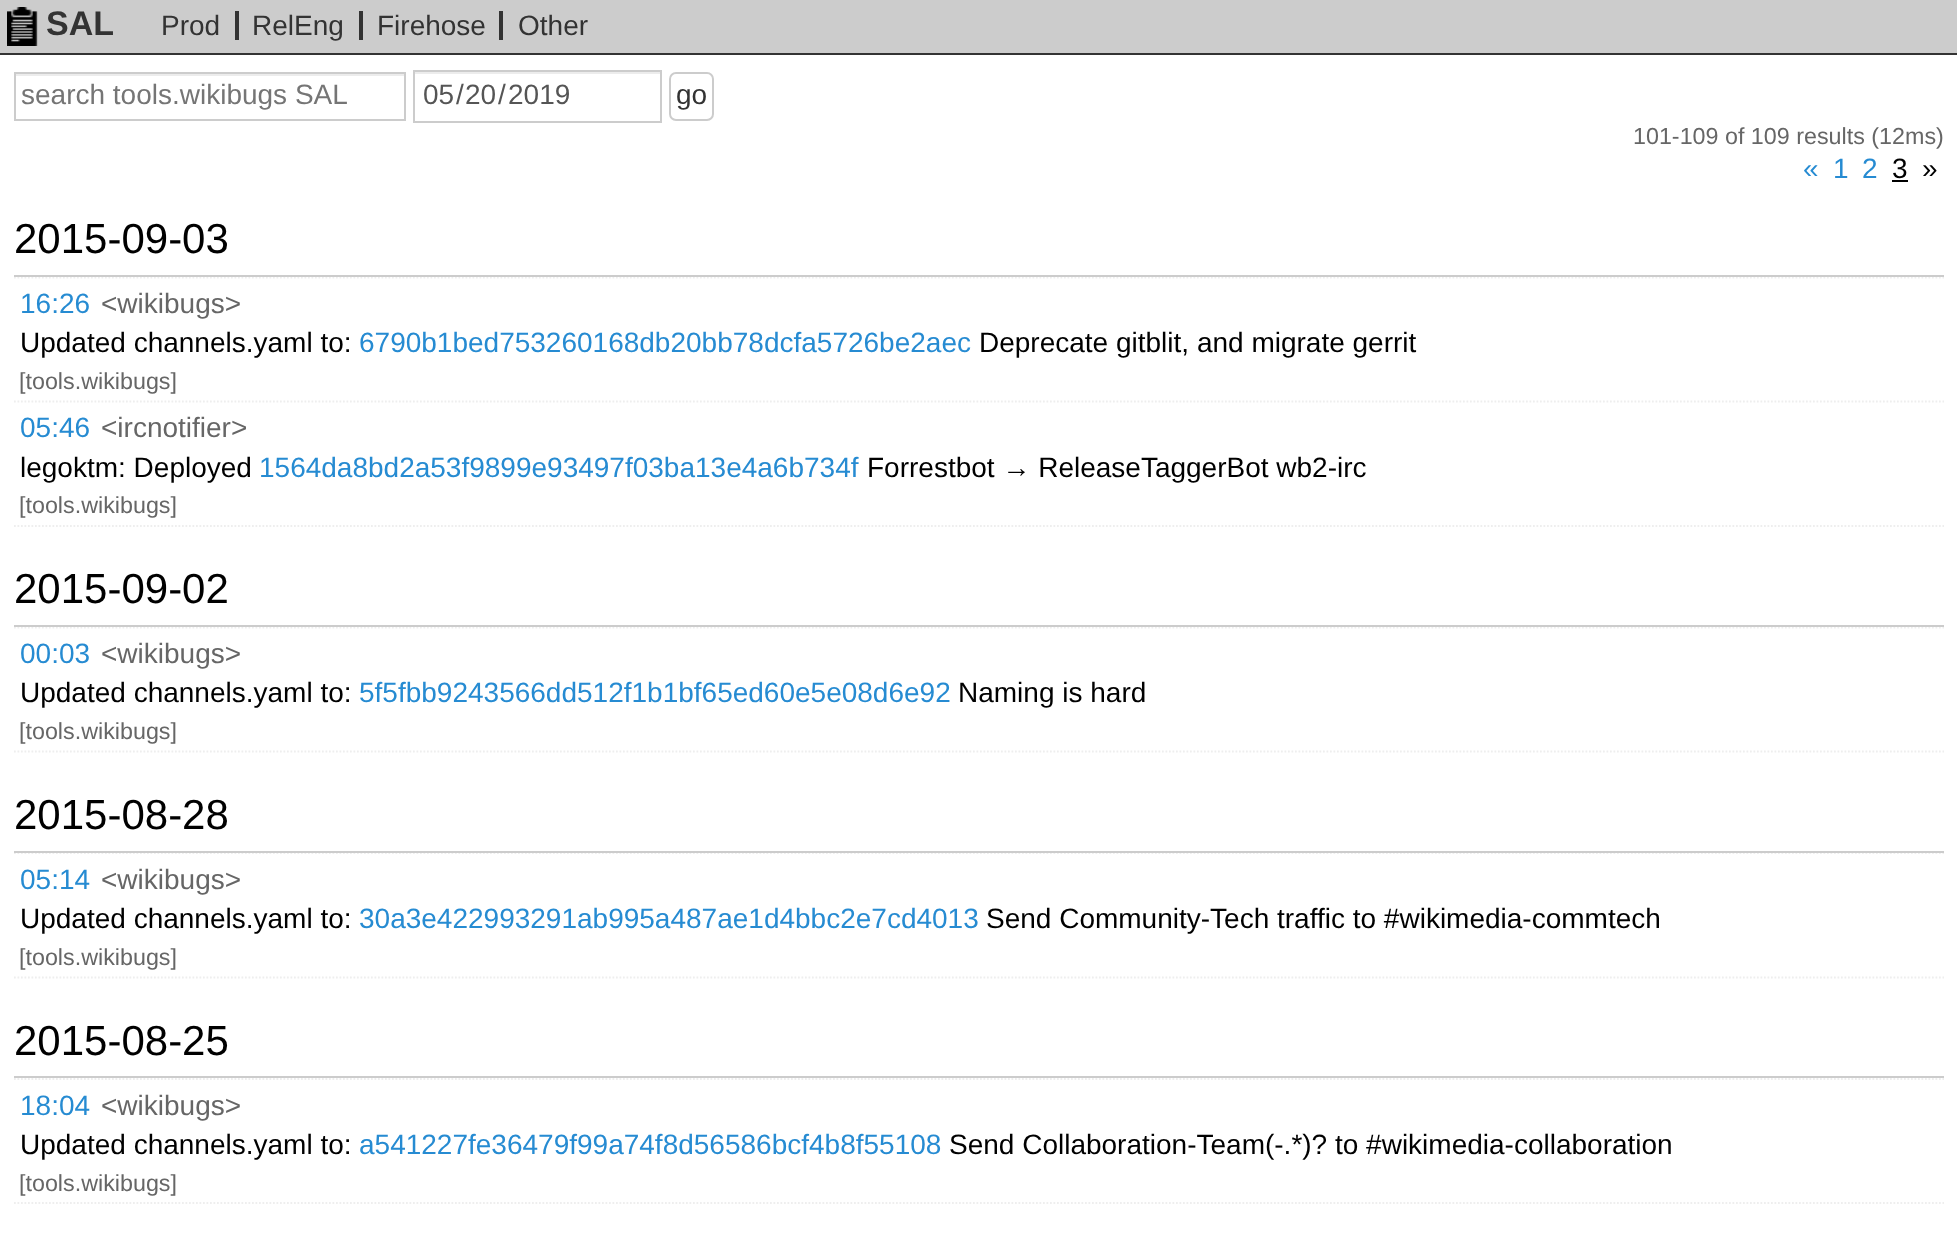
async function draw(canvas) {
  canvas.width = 1957
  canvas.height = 1256
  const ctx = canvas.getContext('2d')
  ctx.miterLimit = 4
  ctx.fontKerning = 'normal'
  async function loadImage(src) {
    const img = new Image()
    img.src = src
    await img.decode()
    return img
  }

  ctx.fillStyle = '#fff'
  ctx.fillRect(0, 0, 1957, 1256)
  ctx.fillStyle = '#ccc'
  ctx.fillRect(0, 0, 1957, 53)
  ctx.fillStyle = '#333'
  ctx.fillRect(0, 53, 1957, 2)
  ctx.drawImage(await loadImage('image0.png'), 7, 7, 31, 39)
  ctx.font = 'bold 34px Liberation Sans'
  ctx.fillText('SAL', 46, 35)
  ctx.font = '28px Liberation Sans'
  ctx.fillText('Prod', 161, 35)
  ctx.fillRect(235, 11, 4, 29)
  ctx.fillText('RelEng', 252, 35)
  ctx.fillText('Firehose', 377, 35)
  ctx.fillRect(359, 11, 4, 29)
  ctx.fillRect(499, 11, 4, 29)
  ctx.fillText('Other', 518, 35)
  ctx.fillStyle = '#ececec'
  ctx.fillRect(16, 74, 388, 2)
  ctx.strokeStyle = '#ccc'
  ctx.lineWidth = 2
  ctx.strokeRect(15, 73, 390, 47)
  ctx.fillStyle = '#757575'
  ctx.fillText('search tools.wikibugs SAL', 21, 104)
  ctx.fillStyle = '#ececec'
  ctx.fillRect(415, 72, 245, 2)
  ctx.strokeRect(414, 71, 247, 51)
  ctx.fillStyle = '#555'
  ctx.fillText('05', 423, 104)
  ctx.fillText('/', 456, 104)
  ctx.fillText('20', 465, 104)
  ctx.fillText('/', 498, 104)
  ctx.fillText('2019', 508, 104)
  ctx.beginPath()
  ctx.roundRect(670, 73, 43, 47, 6)
  ctx.stroke()
  ctx.fillStyle = '#333'
  ctx.fillText('go', 676, 104)
  ctx.font = '23.3px Liberation Sans'
  ctx.fillStyle = '#666'
  ctx.fillText('101-109 of 109 results (12ms)', 1633, 144)
  ctx.font = '28px Liberation Sans'
  ctx.fillStyle = '#268bd2'
  ctx.fillText('«', 1803, 178)
  ctx.fillText('1', 1833, 178)
  ctx.fillText('2', 1862, 178)
  ctx.fillStyle = '#000'
  ctx.fillText('3', 1892, 178)
  ctx.fillRect(1892, 180, 16, 2)
  ctx.fillText('»', 1922, 178)
  ctx.beginPath()
  ctx.moveTo(14, 277.5)
  ctx.lineTo(1944, 277.5)
  ctx.strokeStyle = '#eee'
  ctx.lineWidth = 1.8
  ctx.setLineDash([1.75, 1.75])
  ctx.stroke()
  ctx.fillStyle = '#ccc'
  ctx.fillRect(14, 275, 1930, 2)
  ctx.font = '42px Liberation Sans'
  ctx.fillStyle = '#000'
  ctx.fillText('2015-09-03', 14, 253)
  ctx.beginPath()
  ctx.moveTo(14, 401.5)
  ctx.lineTo(1944, 401.5)
  ctx.stroke()
  ctx.font = '28px Liberation Sans'
  ctx.fillStyle = '#268bd2'
  ctx.fillText('16:26', 20, 313)
  ctx.fillStyle = '#666'
  ctx.fillText('<wikibugs>', 101, 313)
  ctx.fillStyle = '#000'
  ctx.fillText('Updated channels.yaml to:', 20, 352)
  ctx.fillStyle = '#268bd2'
  ctx.fillText('6790b1bed753260168db20bb78dcfa5726be2aec', 359, 352)
  ctx.fillStyle = '#000'
  ctx.fillText('Deprecate gitblit, and migrate gerrit', 979, 352)
  ctx.font = '23.3px Liberation Sans'
  ctx.fillStyle = '#666'
  ctx.fillText('[tools.wikibugs]', 19, 389)
  ctx.beginPath()
  ctx.moveTo(14, 526)
  ctx.lineTo(1944, 526)
  ctx.stroke()
  ctx.font = '28px Liberation Sans'
  ctx.fillStyle = '#268bd2'
  ctx.fillText('05:46', 20, 437)
  ctx.fillStyle = '#666'
  ctx.fillText('<ircnotifier>', 101, 437)
  ctx.fillStyle = '#000'
  ctx.fillText('legoktm: Deployed', 20, 477)
  ctx.fillStyle = '#268bd2'
  ctx.fillText('1564da8bd2a53f9899e93497f03ba13e4a6b734f', 259, 477)
  ctx.fillStyle = '#000'
  ctx.fillText('Forrestbot → ReleaseTaggerBot wb2-irc', 867, 477)
  ctx.font = '23.3px Liberation Sans'
  ctx.fillStyle = '#666'
  ctx.fillText('[tools.wikibugs]', 19, 513)
  ctx.beginPath()
  ctx.moveTo(14, 627.5)
  ctx.lineTo(1944, 627.5)
  ctx.stroke()
  ctx.fillStyle = '#ccc'
  ctx.fillRect(14, 625, 1930, 2)
  ctx.font = '42px Liberation Sans'
  ctx.fillStyle = '#000'
  ctx.fillText('2015-09-02', 14, 603)
  ctx.beginPath()
  ctx.moveTo(14, 751.5)
  ctx.lineTo(1944, 751.5)
  ctx.stroke()
  ctx.font = '28px Liberation Sans'
  ctx.fillStyle = '#268bd2'
  ctx.fillText('00:03', 20, 663)
  ctx.fillStyle = '#666'
  ctx.fillText('<wikibugs>', 101, 663)
  ctx.fillStyle = '#000'
  ctx.fillText('Updated channels.yaml to:', 20, 702)
  ctx.fillStyle = '#268bd2'
  ctx.fillText('5f5fbb9243566dd512f1b1bf65ed60e5e08d6e92', 359, 702)
  ctx.fillStyle = '#000'
  ctx.fillText('Naming is hard', 958, 702)
  ctx.font = '23.3px Liberation Sans'
  ctx.fillStyle = '#666'
  ctx.fillText('[tools.wikibugs]', 19, 739)
  ctx.beginPath()
  ctx.moveTo(14, 853)
  ctx.lineTo(1944, 853)
  ctx.stroke()
  ctx.fillStyle = '#ccc'
  ctx.fillRect(14, 851, 1930, 2)
  ctx.font = '42px Liberation Sans'
  ctx.fillStyle = '#000'
  ctx.fillText('2015-08-28', 14, 829)
  ctx.beginPath()
  ctx.moveTo(14, 977.5)
  ctx.lineTo(1944, 977.5)
  ctx.stroke()
  ctx.font = '28px Liberation Sans'
  ctx.fillStyle = '#268bd2'
  ctx.fillText('05:14', 20, 889)
  ctx.fillStyle = '#666'
  ctx.fillText('<wikibugs>', 101, 889)
  ctx.fillStyle = '#000'
  ctx.fillText('Updated channels.yaml to:', 20, 928)
  ctx.fillStyle = '#268bd2'
  ctx.fillText('30a3e422993291ab995a487ae1d4bbc2e7cd4013', 359, 928)
  ctx.fillStyle = '#000'
  ctx.fillText('Send Community-Tech traffic to #wikimedia-commtech', 986, 928)
  ctx.font = '23.3px Liberation Sans'
  ctx.fillStyle = '#666'
  ctx.fillText('[tools.wikibugs]', 19, 965)
  ctx.beginPath()
  ctx.moveTo(14, 1079)
  ctx.lineTo(1944, 1079)
  ctx.stroke()
  ctx.fillStyle = '#ccc'
  ctx.fillRect(14, 1076, 1930, 2)
  ctx.font = '42px Liberation Sans'
  ctx.fillStyle = '#000'
  ctx.fillText('2015-08-25', 14, 1055)
  ctx.beginPath()
  ctx.moveTo(14, 1203)
  ctx.lineTo(1944, 1203)
  ctx.stroke()
  ctx.font = '28px Liberation Sans'
  ctx.fillStyle = '#268bd2'
  ctx.fillText('18:04', 20, 1115)
  ctx.fillStyle = '#666'
  ctx.fillText('<wikibugs>', 101, 1115)
  ctx.fillStyle = '#000'
  ctx.fillText('Updated channels.yaml to:', 20, 1154)
  ctx.fillStyle = '#268bd2'
  ctx.fillText('a541227fe36479f99a74f8d56586bcf4b8f55108', 359, 1154)
  ctx.fillStyle = '#000'
  ctx.fillText('Send Collaboration-Team(-.*)? to #wikimedia-collaboration', 949, 1154)
  ctx.font = '23.3px Liberation Sans'
  ctx.fillStyle = '#666'
  ctx.fillText('[tools.wikibugs]', 19, 1191)
}

draw(document.querySelector('canvas'))
